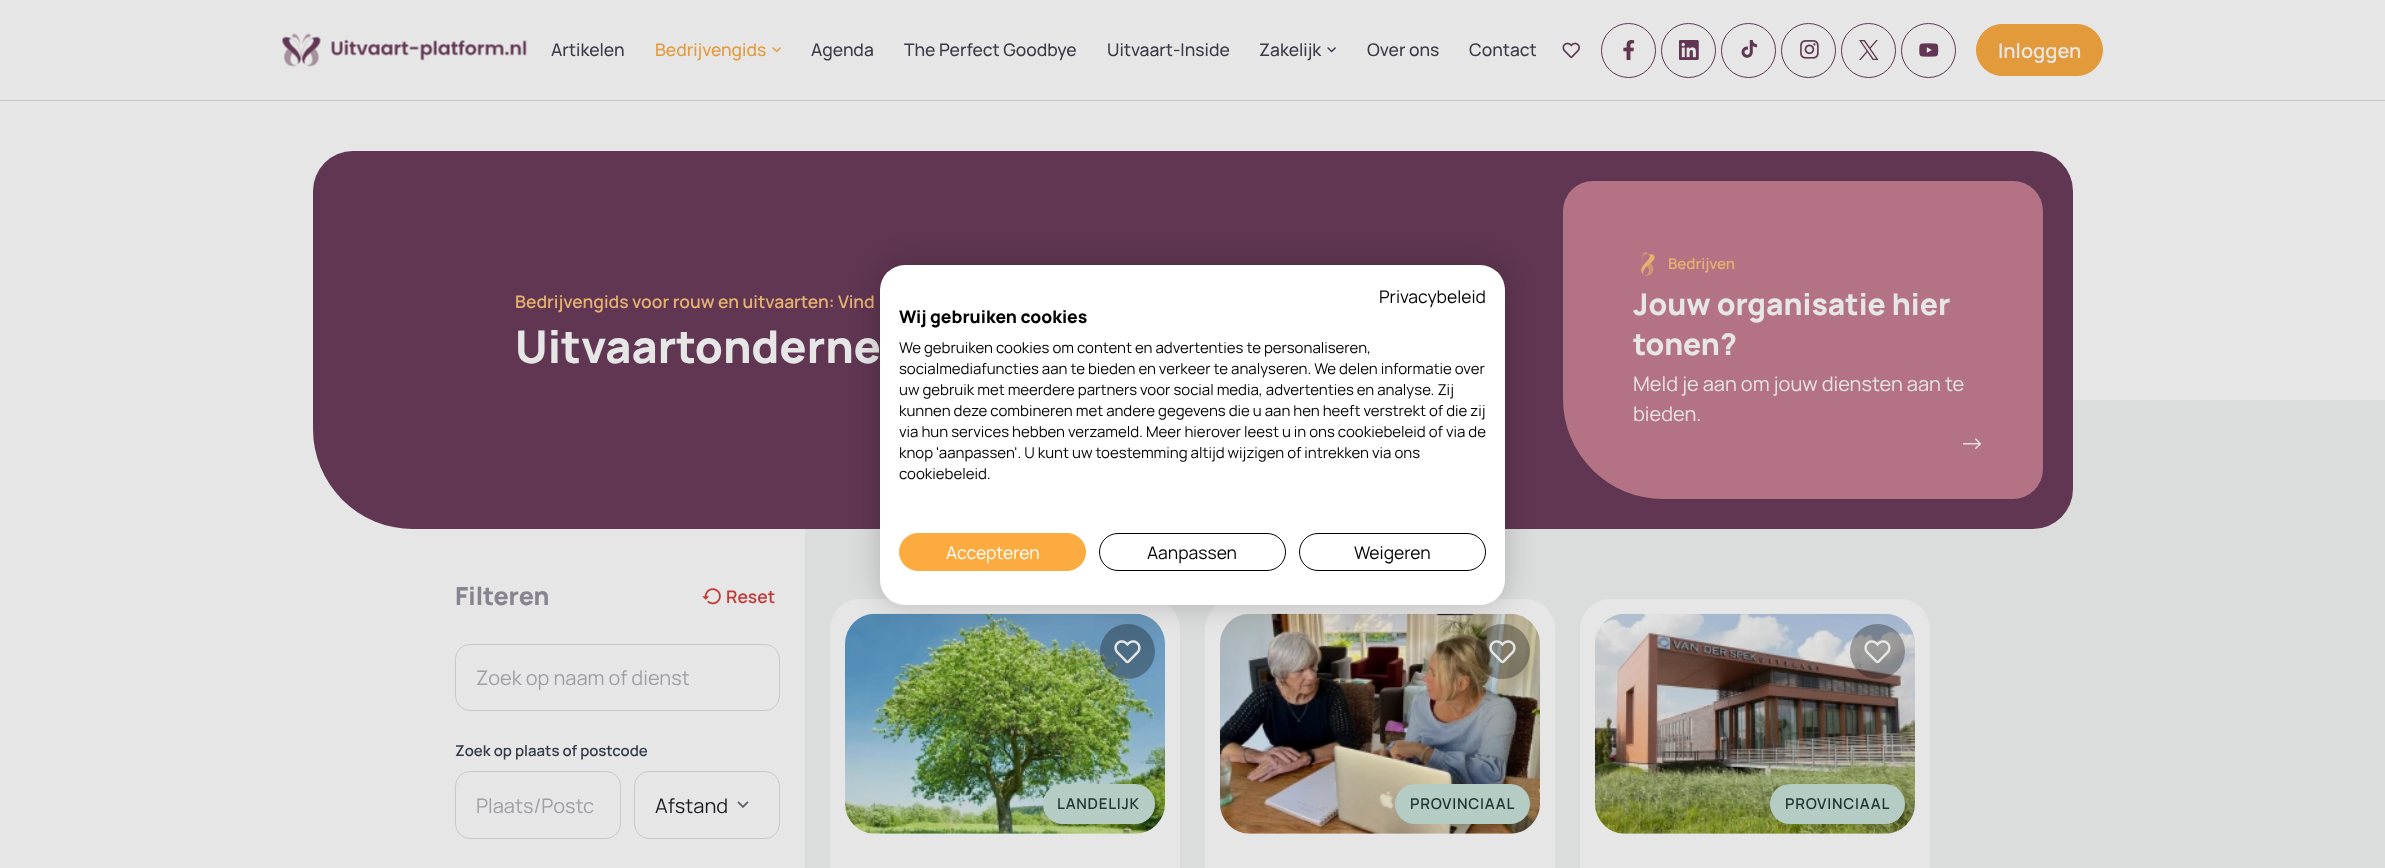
async function draw(canvas) {
  canvas.width = 2385
  canvas.height = 868
  const ctx = canvas.getContext('2d')
  ctx.miterLimit = 4
  ctx.fontKerning = 'normal'
  async function loadImage(src) {
    const img = new Image()
    img.src = src
    await img.decode()
    return img
  }

  ctx.fillStyle = '#e6e6e6'
  ctx.fillRect(0, 0, 2385, 868)
  ctx.fillStyle = '#dbdddd'
  ctx.fillRect(805, 400, 1580, 468)
  ctx.fillStyle = '#c8c7cb'
  ctx.fillRect(0, 100, 2385, 1)
  ctx.drawImage(await loadImage('image0.png'), 282, 33, 245, 34)
  ctx.font = '500 17.5px Manrope'
  ctx.fillStyle = '#3c3849'
  ctx.fillText('Artikelen', 551, 56)
  ctx.fillStyle = '#e39a3b'
  ctx.fillText('Bedrijvengids', 655, 56)
  ctx.drawImage(await loadImage('image1.png'), 772, 47, 9, 6)
  ctx.fillStyle = '#3c3849'
  ctx.fillText('Agenda', 811, 56)
  ctx.fillText('The Perfect Goodbye', 904, 56)
  ctx.fillText('Uitvaart-Inside', 1107, 56)
  ctx.fillText('Zakelijk', 1259, 56)
  ctx.drawImage(await loadImage('image2.png'), 1327, 47, 9, 6)
  ctx.fillText('Over ons', 1367, 56)
  ctx.fillText('Contact', 1469, 56)
  ctx.drawImage(await loadImage('image3.png'), 1562, 42, 18, 16)
  ctx.beginPath()
  ctx.arc(1628.5, 50.5, 27, 0, 2 * Math.PI)
  ctx.strokeStyle = '#603652'
  ctx.stroke()
  ctx.drawImage(await loadImage('image4.png'), 1623, 40, 12, 20)
  ctx.beginPath()
  ctx.arc(1688.5, 50.5, 27, 0, 2 * Math.PI)
  ctx.stroke()
  ctx.drawImage(await loadImage('image5.png'), 1679, 40, 20, 20)
  ctx.beginPath()
  ctx.arc(1748.5, 50.5, 27, 0, 2 * Math.PI)
  ctx.stroke()
  ctx.drawImage(await loadImage('image6.png'), 1741, 40, 17, 18)
  ctx.beginPath()
  ctx.arc(1808.5, 50.5, 27, 0, 2 * Math.PI)
  ctx.stroke()
  ctx.drawImage(await loadImage('image7.png'), 1800, 40, 19, 19)
  ctx.beginPath()
  ctx.arc(1868.5, 50.5, 27, 0, 2 * Math.PI)
  ctx.stroke()
  ctx.drawImage(await loadImage('image8.png'), 1859, 40, 20, 20)
  ctx.beginPath()
  ctx.arc(1928.5, 50.5, 27, 0, 2 * Math.PI)
  ctx.stroke()
  ctx.drawImage(await loadImage('image9.png'), 1919, 43, 20, 14)
  ctx.fillStyle = '#e39a3b'
  ctx.beginPath()
  ctx.roundRect(1976.5, 24.5, 126, 51, 25.5)
  ctx.fill()
  ctx.strokeStyle = '#e39a3b'
  ctx.stroke()
  ctx.font = '600 20px Manrope'
  ctx.fillStyle = '#e6e6e6'
  ctx.fillText('Inloggen', 1998, 58)
  ctx.fillStyle = '#603652'
  ctx.beginPath()
  ctx.roundRect(313, 151, 1760, 378, [40, 40, 40, 100])
  ctx.fill()
  ctx.font = '600 17.5px Manrope'
  ctx.fillStyle = '#e5b270'
  ctx.fillText('Bedrijvengids voor rouw en uitvaarten: Vind', 515, 308)
  ctx.font = '800 45px Manrope'
  ctx.fillStyle = '#e6e6e6'
  ctx.fillText('Uitvaartonderne', 515, 363)
  ctx.fillStyle = '#b47384'
  ctx.beginPath()
  ctx.roundRect(1563, 181, 480, 318, [30, 30, 30, 100])
  ctx.fill()
  ctx.drawImage(await loadImage('image10.png'), 1641, 252, 14, 24)
  ctx.font = '600 15px Manrope'
  ctx.fillStyle = '#e5b270'
  ctx.fillText('Bedrijven', 1668, 269)
  ctx.font = '800 30px Manrope'
  ctx.fillStyle = '#e6e6e6'
  ctx.fillText('Jouw organisatie hier', 1633, 315)
  ctx.fillText('tonen?', 1633, 355)
  ctx.font = '20px Manrope'
  ctx.fillText('Meld je aan om jouw diensten aan te', 1633, 391)
  ctx.fillText('bieden.', 1633, 421)
  ctx.drawImage(await loadImage('image11.png'), 1963, 438, 19, 11)
  ctx.font = '800 25px Manrope'
  ctx.fillStyle = '#878390'
  ctx.fillText('Filteren', 455, 605)
  ctx.drawImage(await loadImage('image12.png'), 702, 588, 19, 17)
  ctx.font = '600 17.5px Manrope'
  ctx.fillStyle = '#c23838'
  ctx.fillText('Reset', 726, 603)
  ctx.beginPath()
  ctx.roundRect(455.5, 644.5, 324, 66, 14.5)
  ctx.strokeStyle = '#c8c7cb'
  ctx.stroke()
  ctx.font = '20px Manrope'
  ctx.fillStyle = '#9f9ea4'
  ctx.fillText('Zoek op naam of dienst', 476, 685)
  ctx.font = '600 15px Manrope'
  ctx.fillStyle = '#323b49'
  ctx.fillText('Zoek op plaats of postcode', 455, 756)
  ctx.beginPath()
  ctx.roundRect(455.5, 771.5, 165, 67, 14.5)
  ctx.stroke()
  ctx.font = '20px Manrope'
  ctx.fillStyle = '#9f9ea4'
  ctx.fillText('Plaats/Postc', 476, 813)
  ctx.beginPath()
  ctx.roundRect(634.5, 771.5, 145, 67, 14.5)
  ctx.stroke()
  ctx.fillStyle = '#1c1b20'
  ctx.fillText('Afstand', 655, 813)
  ctx.drawImage(await loadImage('image13.png'), 737, 801, 12, 7)
  ctx.fillStyle = '#e6e6e6'
  ctx.beginPath()
  ctx.roundRect(830, 599, 350, 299, 30)
  ctx.fill()
  ctx.drawImage(await loadImage('image14.png'), 845, 613, 320, 221)
  ctx.fillStyle = '#0000004d'
  ctx.beginPath()
  ctx.arc(1127.5, 651.5, 27.5, 0, 2 * Math.PI)
  ctx.fill()
  ctx.drawImage(await loadImage('image15.png'), 1114, 640, 27, 24)
  ctx.fillStyle = '#b5ccc5'
  ctx.beginPath()
  ctx.roundRect(1043, 784, 112, 40, 20)
  ctx.fill()
  ctx.letterSpacing = '0.75px'
  ctx.font = '600 15px Manrope'
  ctx.fillStyle = '#1e3533'
  ctx.fillText('LANDELIJK', 1057, 809)
  ctx.fillStyle = '#e6e6e6'
  ctx.beginPath()
  ctx.roundRect(1205, 599, 350, 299, 30)
  ctx.fill()
  ctx.drawImage(await loadImage('image16.png'), 1220, 613, 320, 221)
  ctx.fillStyle = '#0000004d'
  ctx.beginPath()
  ctx.arc(1502.5, 651.5, 27.5, 0, 2 * Math.PI)
  ctx.fill()
  ctx.drawImage(await loadImage('image17.png'), 1489, 640, 27, 24)
  ctx.fillStyle = '#b5ccc5'
  ctx.beginPath()
  ctx.roundRect(1395, 784, 135, 40, 20)
  ctx.fill()
  ctx.fillStyle = '#1e3533'
  ctx.fillText('PROVINCIAAL', 1410, 809)
  ctx.fillStyle = '#e6e6e6'
  ctx.beginPath()
  ctx.roundRect(1580, 599, 350, 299, 30)
  ctx.fill()
  ctx.drawImage(await loadImage('image18.png'), 1595, 613, 320, 221)
  ctx.fillStyle = '#0000004d'
  ctx.beginPath()
  ctx.arc(1877.5, 651.5, 27.5, 0, 2 * Math.PI)
  ctx.fill()
  ctx.drawImage(await loadImage('image19.png'), 1864, 640, 27, 24)
  ctx.fillStyle = '#b5ccc5'
  ctx.beginPath()
  ctx.roundRect(1770, 784, 135, 40, 20)
  ctx.fill()
  ctx.fillStyle = '#1e3533'
  ctx.fillText('PROVINCIAAL', 1785, 809)
  ctx.fillStyle = '#00000033'
  ctx.filter = 'blur(15px)'
  ctx.beginPath()
  ctx.roundRect(880, 265, 625, 340, 25)
  ctx.fill()
  ctx.filter = 'none'
  ctx.fillStyle = '#fff'
  ctx.beginPath()
  ctx.roundRect(880, 265, 625, 340, 25)
  ctx.fill()
  ctx.letterSpacing = '0px'
  ctx.font = '17.5px Manrope'
  ctx.fillStyle = '#000'
  ctx.fillText('Privacybeleid', 1379, 303)
  ctx.font = '800 17.5px Manrope'
  ctx.fillText('Wij gebruiken cookies', 899, 323)
  ctx.font = '15px Manrope'
  ctx.fillText('We gebruiken cookies om content en advertenties te personaliseren,', 899, 353)
  ctx.fillText('socialmediafuncties aan te bieden en verkeer te analyseren. We delen informatie over', 899, 374)
  ctx.fillText('uw gebruik met meerdere partners voor social media, advertenties en analyse. Zij', 899, 395)
  ctx.fillText('kunnen deze combineren met andere gegevens die u aan hen heeft verstrekt of die zij', 899, 416)
  ctx.fillText('via hun services hebben verzameld. Meer hierover leest u in ons cookiebeleid of via de', 899, 437)
  ctx.fillText('knop \'aanpassen\'. U kunt uw toestemming altijd wijzigen of intrekken via ons', 899, 458)
  ctx.fillText('cookiebeleid.', 899, 479)
  ctx.fillStyle = '#fcab41'
  ctx.beginPath()
  ctx.roundRect(899.5, 533.5, 186, 37, 18.5)
  ctx.fill()
  ctx.strokeStyle = '#fcab41'
  ctx.stroke()
  ctx.font = '17.5px Manrope'
  ctx.fillStyle = '#fff'
  ctx.fillText('Accepteren', 946, 559)
  ctx.beginPath()
  ctx.roundRect(1099.5, 533.5, 186, 37, 18.5)
  ctx.strokeStyle = '#000'
  ctx.stroke()
  ctx.fillStyle = '#000'
  ctx.fillText('Aanpassen', 1147, 559)
  ctx.beginPath()
  ctx.roundRect(1299.5, 533.5, 186, 37, 18.5)
  ctx.stroke()
  ctx.fillText('Weigeren', 1354, 559)
}

draw(document.querySelector('canvas'))
